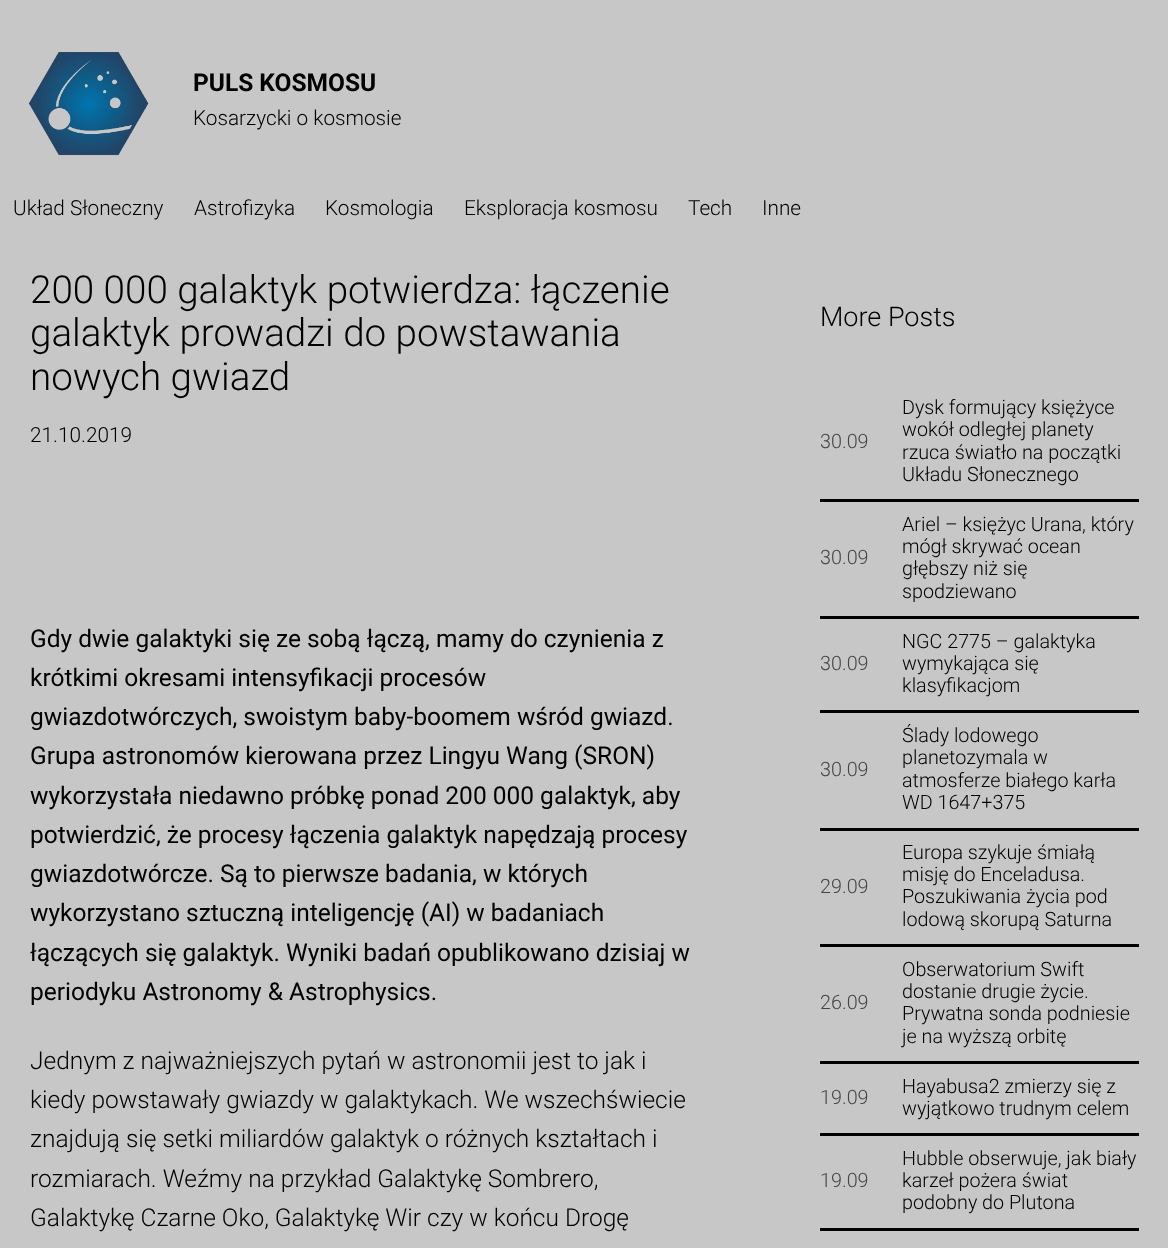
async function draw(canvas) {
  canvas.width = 1168
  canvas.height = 1248
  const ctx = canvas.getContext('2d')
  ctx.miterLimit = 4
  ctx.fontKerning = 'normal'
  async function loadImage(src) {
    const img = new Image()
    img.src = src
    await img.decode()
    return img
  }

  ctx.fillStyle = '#c7c7c7'
  ctx.fillRect(0, 0, 1168, 1248)
  ctx.drawImage(await loadImage('image0.png'), 28, 52, 121, 104)
  ctx.font = 'bold 24.5px Roboto'
  ctx.fillStyle = '#000'
  ctx.fillText('PULS KOSMOSU', 193, 91)
  ctx.font = '300 20.75px Roboto'
  ctx.fillText('Kosarzycki o kosmosie', 193, 125)
  ctx.fillText('Układ Słoneczny', 13, 215)
  ctx.fillText('Astrofizyka', 194, 215)
  ctx.fillText('Kosmologia', 325, 215)
  ctx.fillText('Eksploracja kosmosu', 464, 215)
  ctx.fillText('Tech', 688, 215)
  ctx.fillText('Inne', 762, 215)
  ctx.font = '300 38.6px Roboto'
  ctx.fillText('200 000 galaktyk potwierdza: łączenie', 30, 303)
  ctx.fillText('galaktyk prowadzi do powstawania', 30, 346)
  ctx.fillText('nowych gwiazd', 30, 390)
  ctx.font = '300 20.75px Roboto'
  ctx.fillText('21.10.2019', 30, 442)
  ctx.font = '24.5px Roboto'
  ctx.fillText('Gdy dwie galaktyki się ze sobą łączą, mamy do czynienia z', 30, 647)
  ctx.fillText('krótkimi okresami intensyfikacji procesów', 30, 686)
  ctx.fillText('gwiazdotwórczych, swoistym baby-boomem wśród gwiazd.', 30, 725)
  ctx.fillText('Grupa astronomów kierowana przez Lingyu Wang (SRON)', 30, 764)
  ctx.fillText('wykorzystała niedawno próbkę ponad 200 000 galaktyk, aby', 30, 804)
  ctx.fillText('potwierdzić, że procesy łączenia galaktyk napędzają procesy', 30, 843)
  ctx.fillText('gwiazdotwórcze. Są to pierwsze badania, w których', 30, 882)
  ctx.fillText('wykorzystano sztuczną inteligencję (AI) w badaniach', 30, 921)
  ctx.fillText('łączących się galaktyk. Wyniki badań opublikowano dzisiaj w', 30, 961)
  ctx.fillText('periodyku Astronomy & Astrophysics.', 30, 1000)
  ctx.font = '300 24.5px Roboto'
  ctx.fillText('Jednym z najważniejszych pytań w astronomii jest to jak i', 30, 1069)
  ctx.fillText('kiedy powstawały gwiazdy w galaktykach. We wszechświecie', 30, 1108)
  ctx.fillText('znajdują się setki miliardów galaktyk o różnych kształtach i', 30, 1147)
  ctx.fillText('rozmiarach. Weźmy na przykład Galaktykę Sombrero,', 30, 1187)
  ctx.fillText('Galaktykę Czarne Oko, Galaktykę Wir czy w końcu Drogę', 30, 1226)
  ctx.font = '300 27px Roboto'
  ctx.fillText('More Posts', 820, 326)
  ctx.fillRect(820, 499, 319, 3)
  ctx.font = '300 19.75px Roboto'
  ctx.fillStyle = '#454545'
  ctx.fillText('30.09', 820, 448)
  ctx.fillStyle = '#000'
  ctx.fillText('Dysk formujący księżyce', 902, 414)
  ctx.fillText('wokół odległej planety', 902, 436)
  ctx.fillText('rzuca światło na początki', 902, 459)
  ctx.fillText('Układu Słonecznego', 902, 481)
  ctx.fillRect(820, 616, 319, 3)
  ctx.fillStyle = '#454545'
  ctx.fillText('30.09', 820, 564)
  ctx.fillStyle = '#000'
  ctx.fillText('Ariel – księżyc Urana, który', 902, 531)
  ctx.fillText('mógł skrywać ocean', 902, 553)
  ctx.fillText('głębszy niż się', 902, 575)
  ctx.fillText('spodziewano', 902, 598)
  ctx.fillRect(820, 710, 319, 3)
  ctx.fillStyle = '#454545'
  ctx.fillText('30.09', 820, 670)
  ctx.fillStyle = '#000'
  ctx.fillText('NGC 2775 – galaktyka', 902, 648)
  ctx.fillText('wymykająca się', 902, 670)
  ctx.fillText('klasyfikacjom', 902, 692)
  ctx.fillRect(820, 828, 319, 3)
  ctx.fillStyle = '#454545'
  ctx.fillText('30.09', 820, 776)
  ctx.fillStyle = '#000'
  ctx.fillText('Ślady lodowego', 902, 742)
  ctx.fillText('planetozymala w', 902, 764)
  ctx.fillText('atmosferze białego karła', 902, 787)
  ctx.fillText('WD 1647+375', 902, 809)
  ctx.fillRect(820, 944, 319, 3)
  ctx.fillStyle = '#454545'
  ctx.fillText('29.09', 820, 893)
  ctx.fillStyle = '#000'
  ctx.fillText('Europa szykuje śmiałą', 902, 859)
  ctx.fillText('misję do Enceladusa.', 902, 881)
  ctx.fillText('Poszukiwania życia pod', 902, 903)
  ctx.fillText('lodową skorupą Saturna', 902, 926)
  ctx.fillRect(820, 1061, 319, 3)
  ctx.fillStyle = '#454545'
  ctx.fillText('26.09', 820, 1009)
  ctx.fillStyle = '#000'
  ctx.fillText('Obserwatorium Swift', 902, 976)
  ctx.fillText('dostanie drugie życie.', 902, 998)
  ctx.fillText('Prywatna sonda podniesie', 902, 1020)
  ctx.fillText('je na wyższą orbitę', 902, 1043)
  ctx.fillRect(820, 1133, 319, 3)
  ctx.fillStyle = '#454545'
  ctx.fillText('19.09', 820, 1104)
  ctx.fillStyle = '#000'
  ctx.fillText('Hayabusa2 zmierzy się z', 902, 1093)
  ctx.fillText('wyjątkowo trudnym celem', 902, 1115)
  ctx.fillRect(820, 1228, 319, 3)
  ctx.fillStyle = '#454545'
  ctx.fillText('19.09', 820, 1187)
  ctx.fillStyle = '#000'
  ctx.fillText('Hubble obserwuje, jak biały', 902, 1165)
  ctx.fillText('karzeł pożera świat', 902, 1187)
  ctx.fillText('podobny do Plutona', 902, 1209)
}

draw(document.querySelector('canvas'))
